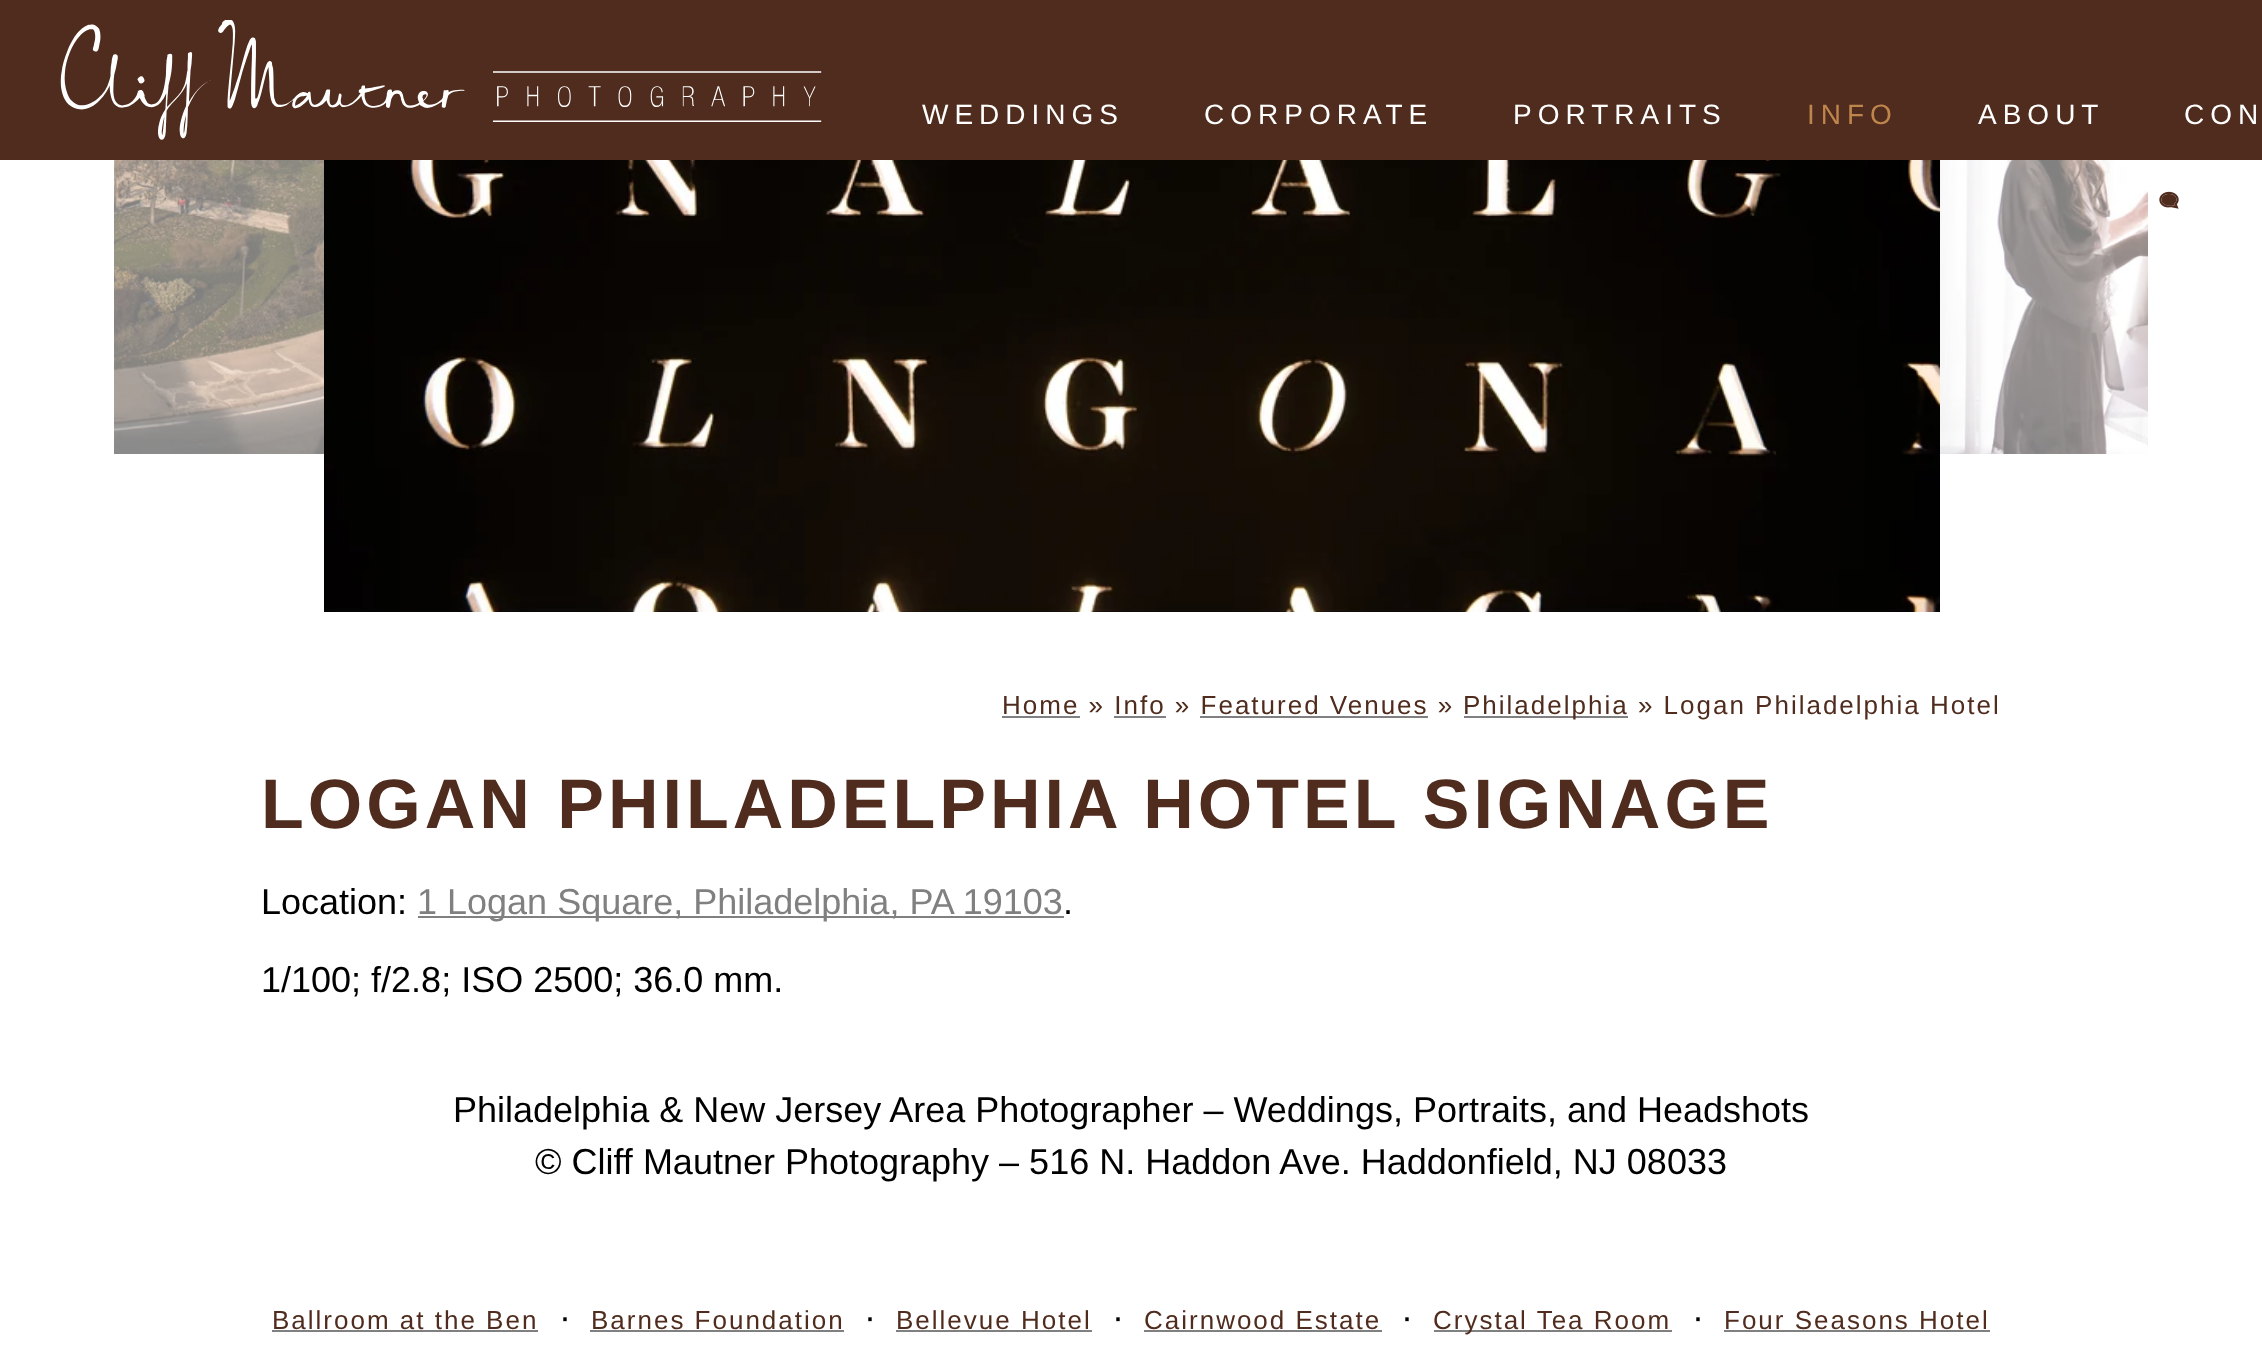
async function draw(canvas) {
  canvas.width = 2262
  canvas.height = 1359
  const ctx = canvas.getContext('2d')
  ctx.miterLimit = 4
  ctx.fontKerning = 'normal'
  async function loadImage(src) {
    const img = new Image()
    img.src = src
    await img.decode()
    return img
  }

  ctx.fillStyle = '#fff'
  ctx.fillRect(0, 0, 2262, 1359)
  ctx.fillStyle = '#4f2c1d'
  ctx.fillRect(0, 0, 2262, 160)
  ctx.drawImage(await loadImage('image0.png'), 60, 20, 762, 120)
  ctx.letterSpacing = '6px'
  ctx.font = '28px Liberation Sans'
  ctx.fillStyle = '#fff'
  ctx.fillText('WEDDINGS', 922, 124)
  ctx.fillText('CORPORATE', 1204, 124)
  ctx.fillText('PORTRAITS', 1513, 124)
  ctx.fillStyle = '#be854c'
  ctx.fillText('INFO', 1807, 124)
  ctx.fillStyle = '#fff'
  ctx.fillText('ABOUT', 1978, 124)
  ctx.fillText('CON', 2184, 124)
  ctx.drawImage(await loadImage('image1.png'), 114, 160, 210, 294)
  ctx.drawImage(await loadImage('image2.png'), 324, 160, 1616, 452)
  ctx.drawImage(await loadImage('image3.png'), 1940, 160, 208, 294)
  ctx.drawImage(await loadImage('image4.png'), 2159, 191, 20, 18)
  ctx.letterSpacing = '2px'
  ctx.font = '26px Liberation Sans'
  ctx.fillStyle = '#4f2c1d'
  ctx.fillText('Home » Info » Featured Venues »', 1002, 714)
  ctx.fillStyle = '#808080'
  ctx.fillRect(1002, 716, 78, 2)
  ctx.fillRect(1464, 716, 164, 2)
  ctx.fillStyle = '#4f2c1d'
  ctx.fillText('Philadelphia » Logan Philadelphia Hotel', 1463, 714)
  ctx.fillStyle = '#808080'
  ctx.fillRect(1114, 716, 52, 2)
  ctx.fillRect(1200, 716, 228, 2)
  ctx.letterSpacing = '4px'
  ctx.font = 'bold 70px Liberation Sans'
  ctx.fillStyle = '#4f2c1d'
  ctx.fillText('LOGAN PHILADELPHIA HOTEL SIGNAGE', 261, 828)
  ctx.letterSpacing = '0px'
  ctx.font = '36px Liberation Sans'
  ctx.fillStyle = '#000'
  ctx.fillText('Location:', 261, 914)
  ctx.fillStyle = '#808080'
  ctx.fillRect(418, 916, 646, 2)
  ctx.fillText('1 Logan Square, Philadelphia, PA 19103', 417, 914)
  ctx.fillStyle = '#000'
  ctx.fillText('.', 1063, 914)
  ctx.fillText('1/100; f/2.8; ISO 2500; 36.0 mm.', 261, 992)
  ctx.fillText('Philadelphia & New Jersey Area Photographer – Weddings, Portraits, and Headshots', 453, 1122)
  ctx.fillText('© Cliff Mautner Photography – 516 N. Haddon Ave. Haddonfield, NJ 08033', 535, 1174)
  ctx.letterSpacing = '2px'
  ctx.font = '26px Liberation Sans'
  ctx.fillStyle = '#4f2c1d'
  ctx.fillText('Ballroom at the Ben', 272, 1329)
  ctx.fillStyle = '#808080'
  ctx.fillRect(272, 1330, 266, 2)
  ctx.letterSpacing = '0px'
  ctx.font = '36px Liberation Sans'
  ctx.fillStyle = '#000'
  ctx.fillText('·', 559, 1329)
  ctx.letterSpacing = '2px'
  ctx.font = '26px Liberation Sans'
  ctx.fillStyle = '#4f2c1d'
  ctx.fillText('Barnes Foundation', 591, 1329)
  ctx.fillStyle = '#808080'
  ctx.fillRect(590, 1330, 254, 2)
  ctx.letterSpacing = '0px'
  ctx.font = '36px Liberation Sans'
  ctx.fillStyle = '#000'
  ctx.fillText('·', 864, 1329)
  ctx.letterSpacing = '2px'
  ctx.font = '26px Liberation Sans'
  ctx.fillStyle = '#4f2c1d'
  ctx.fillText('Bellevue Hotel', 896, 1329)
  ctx.fillStyle = '#808080'
  ctx.fillRect(896, 1330, 196, 2)
  ctx.letterSpacing = '0px'
  ctx.font = '36px Liberation Sans'
  ctx.fillStyle = '#000'
  ctx.fillText('·', 1112, 1329)
  ctx.letterSpacing = '2px'
  ctx.font = '26px Liberation Sans'
  ctx.fillStyle = '#4f2c1d'
  ctx.fillText('Cairnwood Estate', 1144, 1329)
  ctx.fillStyle = '#808080'
  ctx.fillRect(1144, 1330, 238, 2)
  ctx.letterSpacing = '0px'
  ctx.font = '36px Liberation Sans'
  ctx.fillStyle = '#000'
  ctx.fillText('·', 1401, 1329)
  ctx.fillStyle = '#808080'
  ctx.fillRect(1434, 1330, 238, 2)
  ctx.letterSpacing = '2px'
  ctx.font = '26px Liberation Sans'
  ctx.fillStyle = '#4f2c1d'
  ctx.fillText('Crystal Tea Room', 1433, 1329)
  ctx.letterSpacing = '0px'
  ctx.font = '36px Liberation Sans'
  ctx.fillStyle = '#000'
  ctx.fillText('·', 1692, 1329)
  ctx.letterSpacing = '2px'
  ctx.font = '26px Liberation Sans'
  ctx.fillStyle = '#4f2c1d'
  ctx.fillText('Four Seasons Hotel', 1724, 1329)
  ctx.fillStyle = '#808080'
  ctx.fillRect(1724, 1330, 266, 2)
}

draw(document.querySelector('canvas'))
